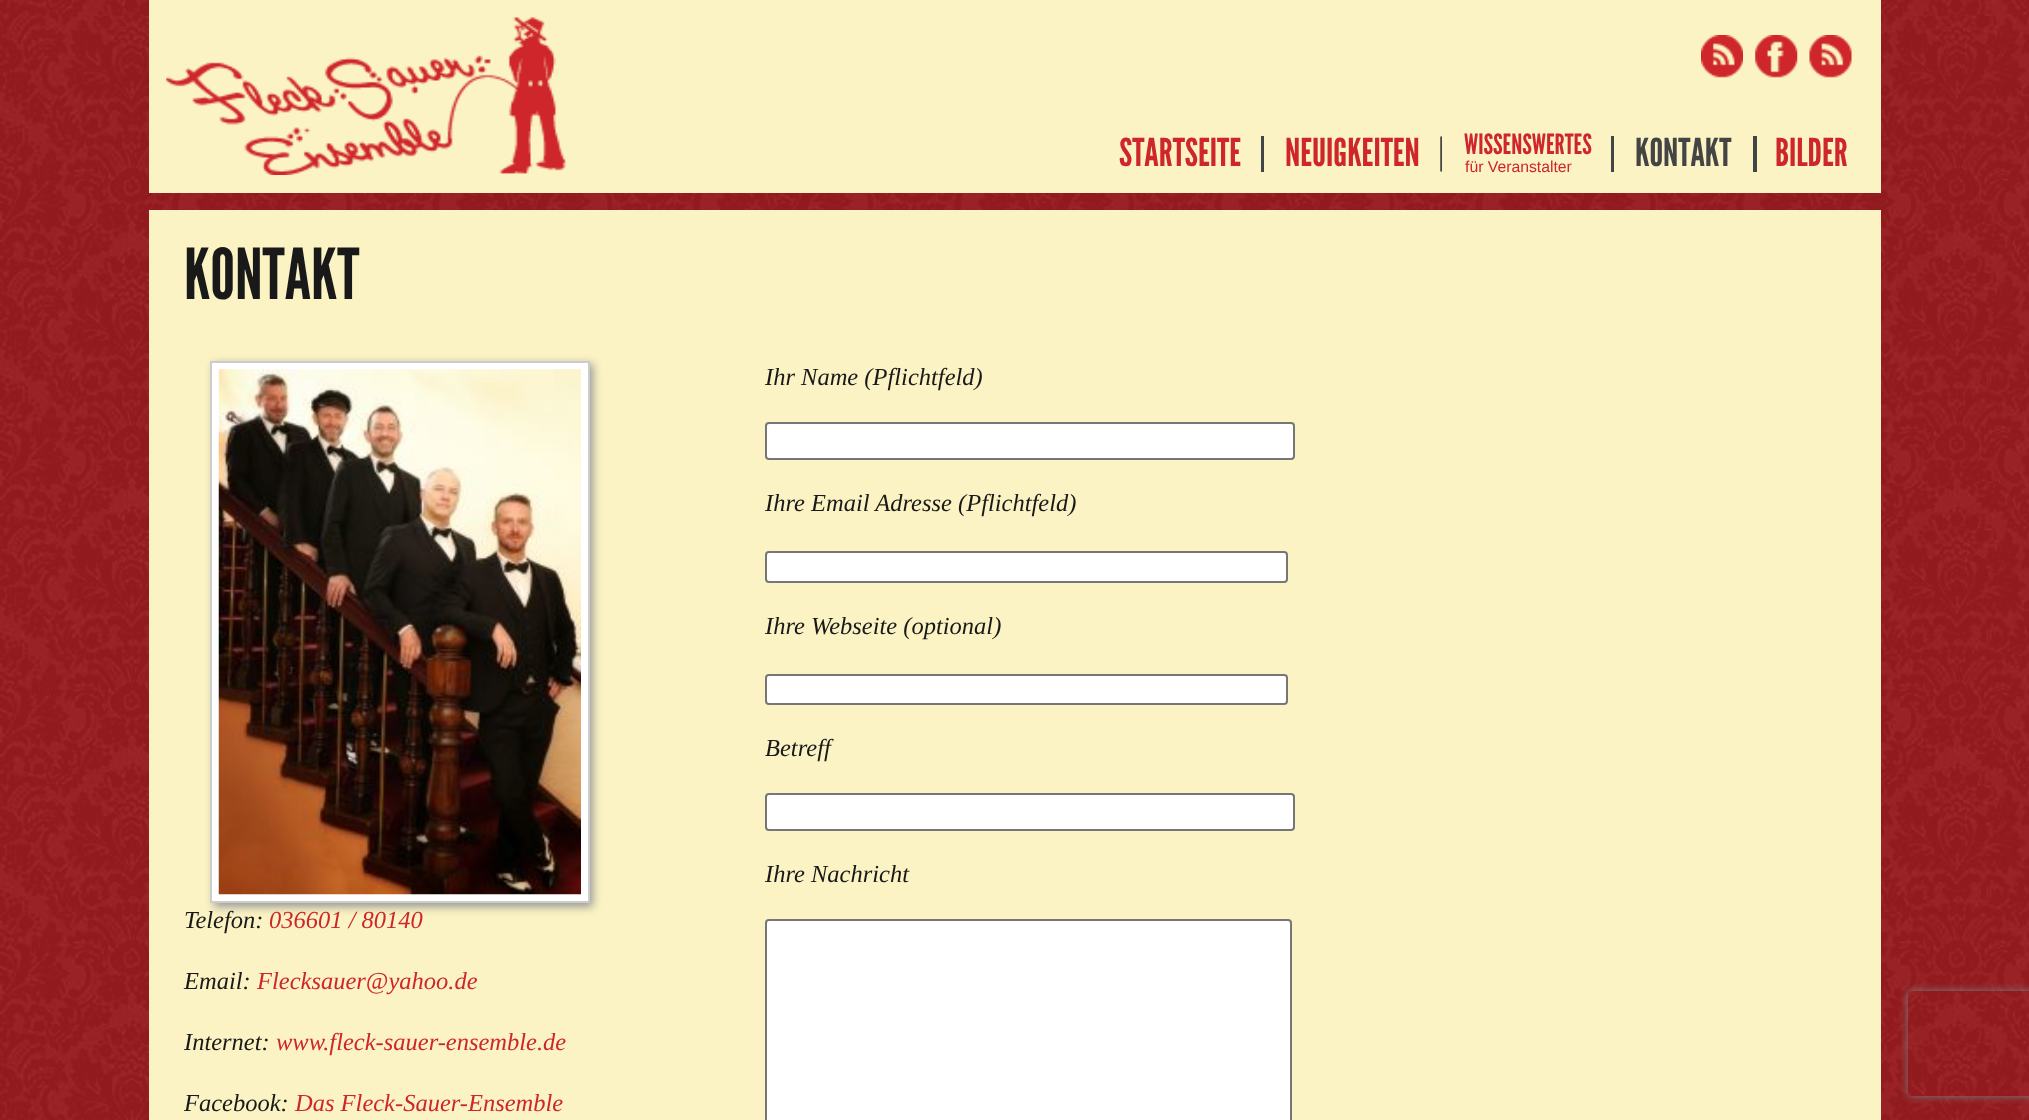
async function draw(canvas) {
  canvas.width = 2029
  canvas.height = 1120
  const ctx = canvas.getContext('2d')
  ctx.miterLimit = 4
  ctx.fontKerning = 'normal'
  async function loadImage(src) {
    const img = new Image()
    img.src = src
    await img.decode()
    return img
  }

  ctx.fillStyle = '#ce262b'
  ctx.fillRect(0, 0, 2029, 1120)
  ctx.drawImage(await loadImage('image0.png'), 0, 0, 2029, 1120)
  ctx.fillStyle = '#fbf3c3'
  ctx.fillRect(149, 0, 1732, 193)
  ctx.drawImage(await loadImage('image1.png'), 166, 17, 400, 158)
  ctx.drawImage(await loadImage('image2.png'), 1701, 35, 42, 43)
  ctx.drawImage(await loadImage('image3.png'), 1755, 35, 43, 43)
  ctx.drawImage(await loadImage('image4.png'), 1809, 35, 43, 43)
  ctx.font = '38.5px League Gothic'
  ctx.fillStyle = '#ce262b'
  ctx.fillText('STARTSEITE', 1119, 166)
  ctx.fillStyle = '#424446'
  ctx.fillRect(1261, 136, 3, 36)
  ctx.fillStyle = '#ce262b'
  ctx.fillText('NEUIGKEITEN', 1285, 166)
  ctx.drawImage(await loadImage('image5.png'), 1440, 136, 2, 36)
  ctx.font = '28px League Gothic'
  ctx.fillText('WISSENSWERTES', 1464, 154)
  ctx.font = '15.75px Liberation Sans'
  ctx.fillText('für Veranstalter', 1465, 172)
  ctx.fillStyle = '#424446'
  ctx.fillRect(1611, 136, 3, 36)
  ctx.font = '38.5px League Gothic'
  ctx.fillStyle = '#444'
  ctx.fillText('KONTAKT', 1635, 166)
  ctx.fillStyle = '#424446'
  ctx.fillRect(1753, 136, 4, 36)
  ctx.fillStyle = '#ce262b'
  ctx.fillText('BILDER', 1775, 166)
  ctx.fillStyle = '#fbf3c3'
  ctx.fillRect(149, 210, 1732, 910)
  ctx.font = '70px League Gothic'
  ctx.fillStyle = '#191919'
  ctx.fillText('KONTAKT', 184, 299)
  ctx.font = 'italic 24.5px Liberation Serif'
  ctx.fillText('Ihr Name (Pflichtfeld)', 765, 385)
  ctx.fillStyle = '#fff'
  ctx.beginPath()
  ctx.roundRect(766, 423, 528, 36, 3)
  ctx.fill()
  ctx.strokeStyle = '#767676'
  ctx.lineWidth = 2
  ctx.stroke()
  ctx.fillStyle = '#191919'
  ctx.fillText('Ihre Email Adresse (Pflichtfeld)', 765, 511)
  ctx.fillStyle = '#fff'
  ctx.beginPath()
  ctx.roundRect(766, 552, 521, 30, 3)
  ctx.fill()
  ctx.stroke()
  ctx.fillStyle = '#191919'
  ctx.fillText('Ihre Webseite (optional)', 765, 634)
  ctx.fillStyle = '#fff'
  ctx.beginPath()
  ctx.roundRect(766, 675, 521, 29, 3)
  ctx.fill()
  ctx.stroke()
  ctx.fillStyle = '#191919'
  ctx.fillText('Betreff', 765, 756)
  ctx.fillStyle = '#fff'
  ctx.beginPath()
  ctx.roundRect(766, 794, 528, 36, 3)
  ctx.fill()
  ctx.stroke()
  ctx.fillStyle = '#191919'
  ctx.fillText('Ihre Nachricht', 765, 882)
  ctx.fillStyle = '#fff'
  ctx.beginPath()
  ctx.roundRect(766, 920, 525, 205, 3)
  ctx.fill()
  ctx.stroke()
  ctx.fillStyle = '#999'
  ctx.filter = 'blur(4.5px)'
  ctx.beginPath()
  ctx.rect(214, 364, 379, 543)
  ctx.fill()
  ctx.filter = 'none'
  ctx.fillStyle = '#fff'
  ctx.beginPath()
  ctx.rect(211, 362, 378, 540)
  ctx.fill()
  ctx.strokeStyle = '#ccc'
  ctx.stroke()
  ctx.drawImage(await loadImage('image6.png'), 218, 369, 363, 526)
  ctx.fillStyle = '#191919'
  ctx.fillText('Telefon:', 184, 928)
  ctx.fillStyle = '#ce262b'
  ctx.fillText('036601 / 80140', 269, 928)
  ctx.fillStyle = '#191919'
  ctx.fillText('Email:', 184, 989)
  ctx.fillStyle = '#ce262b'
  ctx.fillText('Flecksauer@yahoo.de', 257, 989)
  ctx.fillStyle = '#191919'
  ctx.fillText('Internet:', 184, 1050)
  ctx.fillStyle = '#ce262b'
  ctx.fillText('www.fleck-sauer-ensemble.de', 276, 1050)
  ctx.fillStyle = '#191919'
  ctx.fillText('Facebook:', 184, 1111)
  ctx.fillStyle = '#ce262b'
  ctx.fillText('Das Fleck-Sauer-Ensemble', 295, 1111)
  ctx.save()
  ctx.beginPath()
  ctx.moveTo(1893, 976)
  ctx.lineTo(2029, 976)
  ctx.lineTo(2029, 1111)
  ctx.lineTo(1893, 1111)
  ctx.closePath()
  ctx.moveTo(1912, 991)
  ctx.lineTo(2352, 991)
  ctx.bezierCurveTo(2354, 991, 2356, 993, 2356, 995)
  ctx.lineTo(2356, 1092)
  ctx.bezierCurveTo(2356, 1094, 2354, 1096, 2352, 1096)
  ctx.lineTo(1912, 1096)
  ctx.bezierCurveTo(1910, 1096, 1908, 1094, 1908, 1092)
  ctx.lineTo(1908, 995)
  ctx.bezierCurveTo(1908, 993, 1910, 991, 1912, 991)
  ctx.closePath()
  ctx.clip('evenodd')
  ctx.fillStyle = '#808080'
  ctx.filter = 'blur(4.5px)'
  ctx.beginPath()
  ctx.roundRect(1908, 991, 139, 105, 4)
  ctx.fill()
  ctx.filter = 'none'
  ctx.restore()
}

draw(document.querySelector('canvas'))
